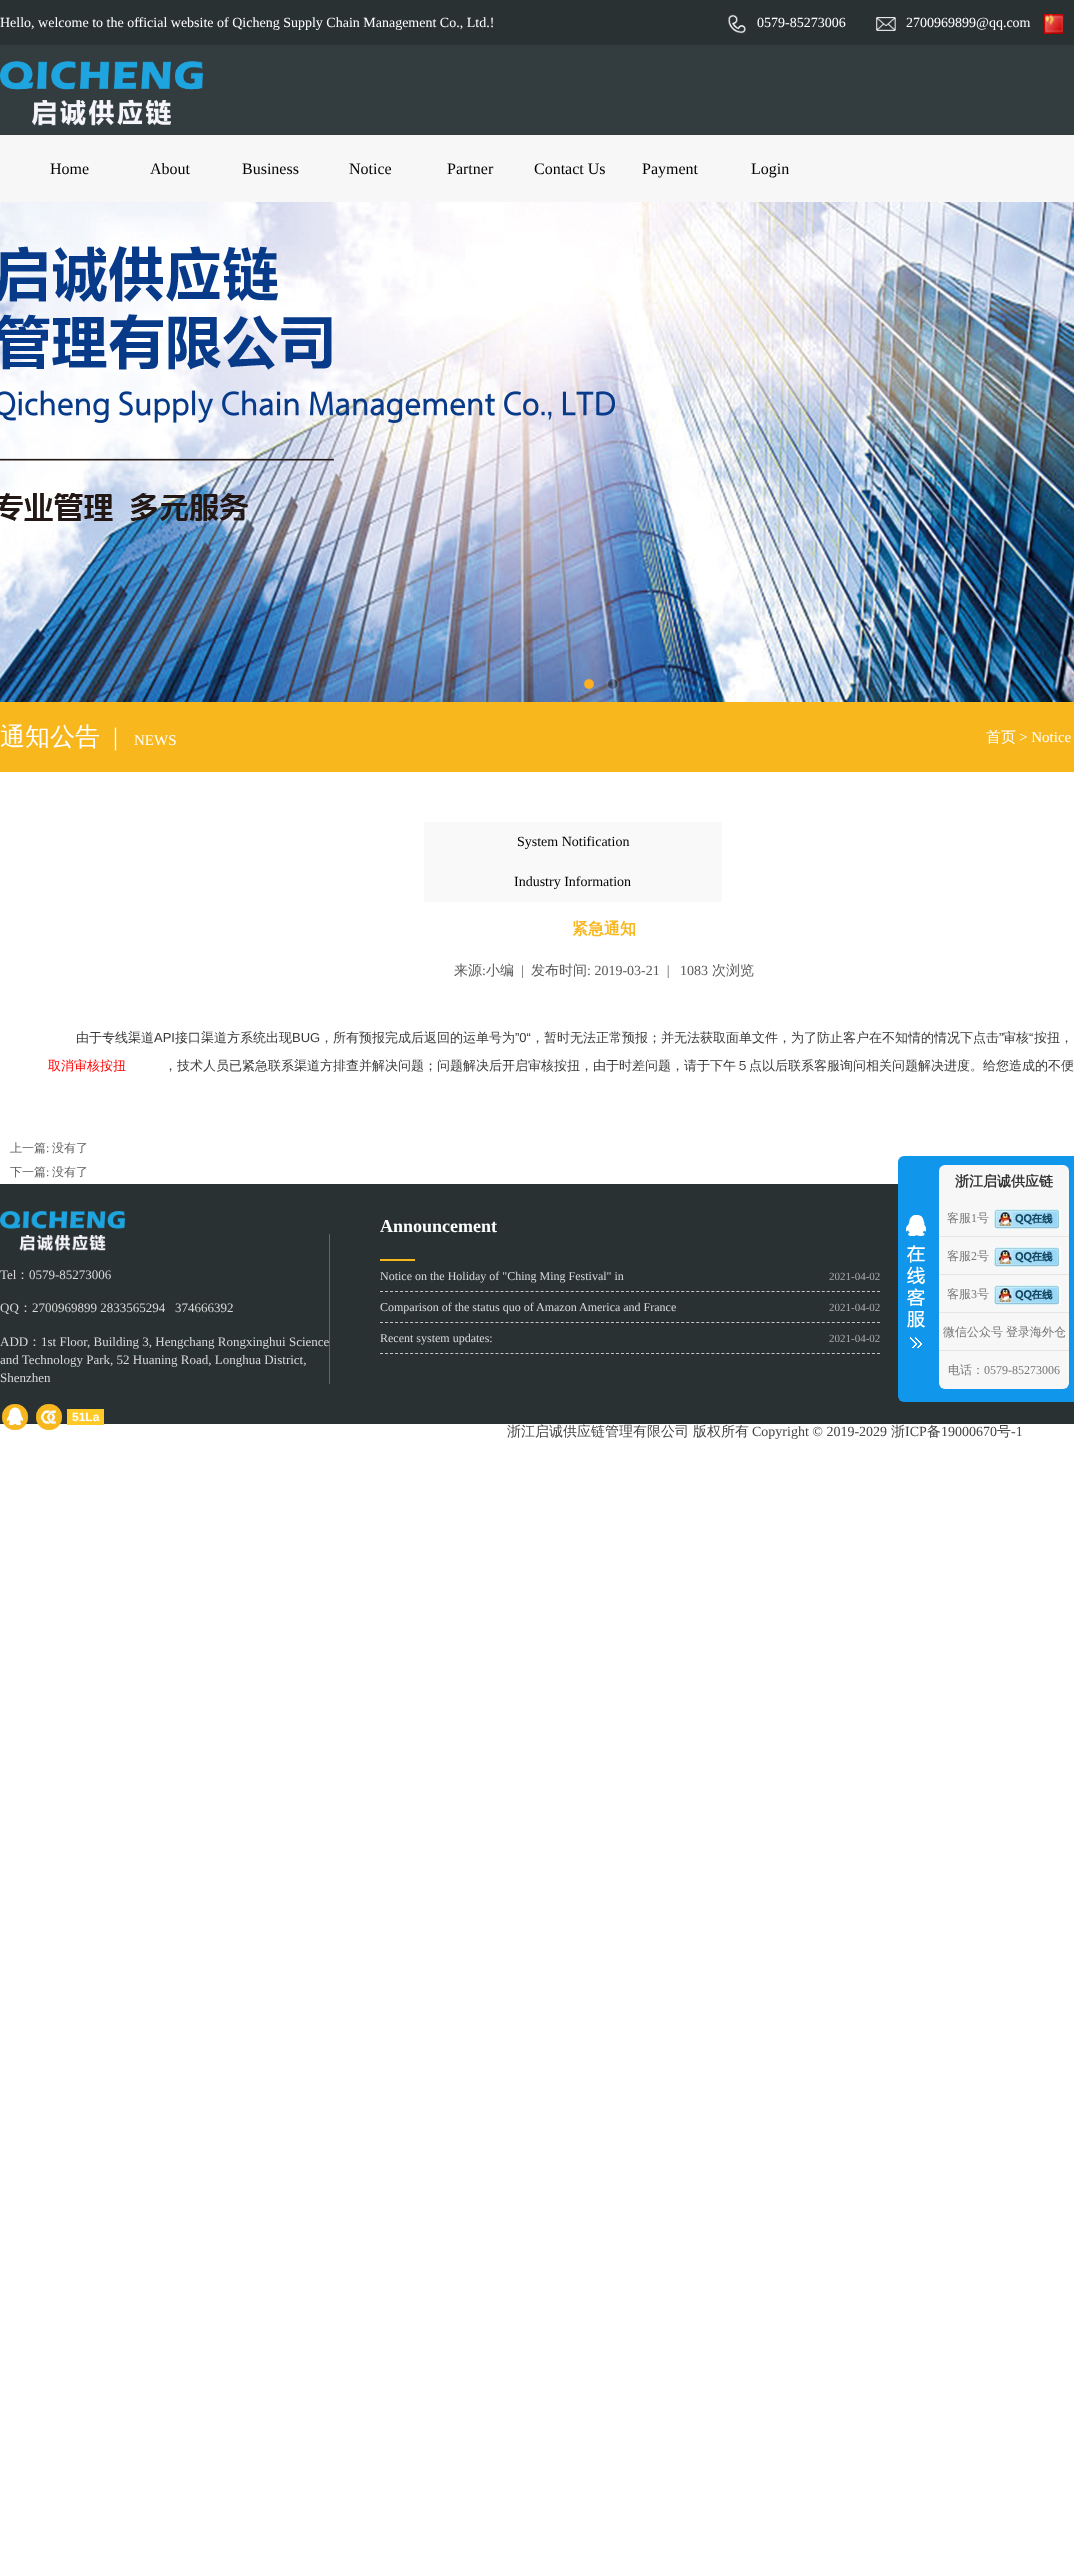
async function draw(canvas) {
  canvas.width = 1074
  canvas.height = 2558
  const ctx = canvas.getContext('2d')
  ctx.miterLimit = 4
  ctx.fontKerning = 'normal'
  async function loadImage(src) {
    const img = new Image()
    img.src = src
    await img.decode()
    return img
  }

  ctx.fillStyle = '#fff'
  ctx.fillRect(0, 0, 1074, 2558)
  ctx.fillStyle = '#293133'
  ctx.fillRect(0, 0, 1074, 45)
  ctx.font = '14px Liberation Serif'
  ctx.fillStyle = '#fff'
  ctx.fillText('Hello, welcome to the official website of Qicheng Supply Chain Management Co., Ltd.!', 0, 27)
  ctx.drawImage(await loadImage('image0.png'), 728, 14, 18, 20)
  ctx.fillText('0579-85273006', 757, 27)
  ctx.drawImage(await loadImage('image1.png'), 876, 17, 20, 14)
  ctx.fillText('2700969899@qq.com', 906, 27)
  ctx.drawImage(await loadImage('image2.png'), 1044, 14, 20, 20)
  ctx.fillStyle = '#333d40'
  ctx.fillRect(0, 45, 1074, 90)
  ctx.drawImage(await loadImage('image3.png'), 0, 61, 203, 65)
  ctx.fillStyle = '#f7f7f7'
  ctx.fillRect(0, 135, 1074, 67)
  ctx.font = '16px Liberation Serif'
  ctx.fillStyle = '#000'
  ctx.fillText('Home', 50, 174)
  ctx.fillText('About', 150, 174)
  ctx.fillText('Business', 242, 174)
  ctx.fillText('Notice', 349, 174)
  ctx.fillText('Partner', 447, 174)
  ctx.fillText('Contact Us', 534, 174)
  ctx.fillText('Payment', 642, 174)
  ctx.fillText('Login', 751, 174)
  ctx.drawImage(await loadImage('image4.png'), 0, 202, 1074, 500)
  ctx.drawImage(await loadImage('image5.png'), 584, 679, 10, 10)
  ctx.drawImage(await loadImage('image6.png'), 605, 676, 15, 16)
  ctx.fillStyle = '#f7b71d'
  ctx.fillRect(0, 702, 1074, 70)
  ctx.font = '500 25px WenQuanYi Zen Hei'
  ctx.fillStyle = '#fff'
  ctx.fillText('通知公告', 0, 745)
  ctx.font = '25px Liberation Serif'
  ctx.fillText('|', 113, 745)
  ctx.font = '15px Liberation Serif'
  ctx.fillText('NEWS', 134, 745)
  ctx.font = '500 15px WenQuanYi Zen Hei'
  ctx.fillText('首页', 986, 742)
  ctx.font = '15px Liberation Serif'
  ctx.fillText('> Notice', 1019, 742)
  ctx.fillStyle = '#f9f9f9'
  ctx.fillRect(424, 822, 298, 80)
  ctx.font = '14px Liberation Serif'
  ctx.fillStyle = '#000'
  ctx.fillText('System Notification', 517, 846)
  ctx.fillText('Industry Information', 514, 886)
  ctx.font = 'bold 16px WenQuanYi Zen Hei'
  ctx.fillStyle = '#f7b71d'
  ctx.fillText('紧急通知', 572, 934)
  ctx.font = '500 14px WenQuanYi Zen Hei'
  ctx.fillStyle = '#5a5a5a'
  ctx.fillText('来源', 454, 975)
  ctx.font = '14px Liberation Serif'
  ctx.fillText(':', 482, 975)
  ctx.font = '500 14px WenQuanYi Zen Hei'
  ctx.fillText('小编', 486, 975)
  ctx.font = '14px Liberation Serif'
  ctx.fillText('|', 521, 975)
  ctx.font = '500 14px WenQuanYi Zen Hei'
  ctx.fillText('发布时间', 531, 975)
  ctx.font = '14px Liberation Serif'
  ctx.fillText(': 2019-03-21  |', 587, 975)
  ctx.fillText('1083', 680, 975)
  ctx.font = '500 14px WenQuanYi Zen Hei'
  ctx.fillText('次浏览', 712, 975)
  ctx.font = '500 13px WenQuanYi Zen Hei'
  ctx.fillStyle = '#393939'
  ctx.fillText('由于专线渠道', 76, 1042)
  ctx.font = '13px Liberation Sans'
  ctx.fillText('API', 154, 1042)
  ctx.font = '500 13px WenQuanYi Zen Hei'
  ctx.fillText('接口渠道方系统出现', 175, 1042)
  ctx.font = '13px Liberation Sans'
  ctx.fillText('BUG', 292, 1042)
  ctx.font = '500 13px WenQuanYi Zen Hei'
  ctx.fillText('，所有预报完成后返回的运单号为', 320, 1042)
  ctx.font = '13px Liberation Sans'
  ctx.fillText('”0“', 515, 1042)
  ctx.font = '500 13px WenQuanYi Zen Hei'
  ctx.fillText('，暂时无法正常预报；并无法获取面单文件，为了防止客户在不知情的情况下点击', 531, 1042)
  ctx.font = '13px Liberation Sans'
  ctx.fillText('”', 999, 1042)
  ctx.font = '500 13px WenQuanYi Zen Hei'
  ctx.fillText('审核', 1003, 1042)
  ctx.font = '13px Liberation Sans'
  ctx.fillText('“', 1029, 1042)
  ctx.font = '500 13px WenQuanYi Zen Hei'
  ctx.fillText('按扭，', 1034, 1042)
  ctx.fillStyle = '#f00'
  ctx.fillText('取消审核按扭', 48, 1070)
  ctx.fillStyle = '#393939'
  ctx.fillText('，技术人员已紧急联系渠道方排查并解决问题；问题解决后开启审核按扭，由于时差问题，请于下午５点以后联系客服询问相关问题解决进度。给您造成的不便', 164, 1070)
  ctx.font = '500 12px WenQuanYi Zen Hei'
  ctx.fillStyle = '#5a5a5a'
  ctx.fillText('上一篇', 10, 1152)
  ctx.font = '12px Liberation Serif'
  ctx.fillText(':', 46, 1152)
  ctx.font = '500 12px WenQuanYi Zen Hei'
  ctx.fillText('没有了', 52, 1152)
  ctx.fillText('下一篇', 10, 1176)
  ctx.font = '12px Liberation Serif'
  ctx.fillText(':', 46, 1176)
  ctx.font = '500 12px WenQuanYi Zen Hei'
  ctx.fillText('没有了', 52, 1176)
  ctx.fillStyle = '#293133'
  ctx.fillRect(0, 1184, 1074, 240)
  ctx.fillStyle = '#1097eb'
  ctx.beginPath()
  ctx.roundRect(898, 1156, 176, 246, [6, 0, 0, 6])
  ctx.fill()
  ctx.drawImage(await loadImage('image7.png'), 906, 1215, 20, 133)
  ctx.fillStyle = '#f7f7f7'
  ctx.beginPath()
  ctx.roundRect(939, 1165, 130, 224, 6)
  ctx.fill()
  ctx.font = 'bold 14px WenQuanYi Zen Hei'
  ctx.fillStyle = '#333'
  ctx.fillText('浙江启诚供应链', 955, 1186)
  ctx.fillStyle = '#e6e4e4'
  ctx.fillRect(939, 1236, 130, 1)
  ctx.font = '500 12px WenQuanYi Zen Hei'
  ctx.fillStyle = '#777'
  ctx.fillText('客服', 947, 1222)
  ctx.font = '12px Liberation Serif'
  ctx.fillText('1', 971, 1222)
  ctx.font = '500 12px WenQuanYi Zen Hei'
  ctx.fillText('号', 977, 1222)
  ctx.drawImage(await loadImage('image8.png'), 994, 1209, 67, 20)
  ctx.fillStyle = '#e6e4e4'
  ctx.fillRect(939, 1274, 130, 1)
  ctx.fillStyle = '#777'
  ctx.fillText('客服', 947, 1260)
  ctx.font = '12px Liberation Serif'
  ctx.fillText('2', 971, 1260)
  ctx.font = '500 12px WenQuanYi Zen Hei'
  ctx.fillText('号', 977, 1260)
  ctx.drawImage(await loadImage('image8.png'), 994, 1247, 67, 20)
  ctx.fillStyle = '#e6e4e4'
  ctx.fillRect(939, 1312, 130, 1)
  ctx.fillStyle = '#777'
  ctx.fillText('客服', 947, 1298)
  ctx.font = '12px Liberation Serif'
  ctx.fillText('3', 971, 1298)
  ctx.font = '500 12px WenQuanYi Zen Hei'
  ctx.fillText('号', 977, 1298)
  ctx.drawImage(await loadImage('image8.png'), 994, 1285, 67, 20)
  ctx.fillStyle = '#e6e4e4'
  ctx.fillRect(939, 1350, 130, 1)
  ctx.fillStyle = '#777'
  ctx.fillText('微信公众号', 943, 1336)
  ctx.fillText('登录海外仓', 1006, 1336)
  ctx.fillText('电话：', 948, 1374)
  ctx.font = '12px Liberation Serif'
  ctx.fillText('0579-85273006', 984, 1374)
  ctx.font = '13px Liberation Serif'
  ctx.fillStyle = '#d9d9d9'
  ctx.fillText('1st Floor, Building 3, Hengchang Rongxinghui Science', 41, 1346)
  ctx.fillStyle = '#666'
  ctx.fillRect(329, 1234, 1, 150)
  ctx.font = 'bold 18px Liberation Serif'
  ctx.fillStyle = '#fff'
  ctx.fillText('Announcement', 380, 1232)
  ctx.fillStyle = '#f7b71d'
  ctx.fillRect(380, 1259, 35, 2)
  ctx.beginPath()
  ctx.moveTo(380, 1291.5)
  ctx.lineTo(880, 1291.5)
  ctx.strokeStyle = '#c6c6c6'
  ctx.setLineDash([3, 2.02])
  ctx.stroke()
  ctx.font = '12px Liberation Serif'
  ctx.fillStyle = '#d9d9d9'
  ctx.fillText('Notice on the Holiday of "Ching Ming Festival" in', 380, 1280)
  ctx.font = '11px Liberation Serif'
  ctx.fillStyle = '#acacac'
  ctx.fillText('2021-04-02', 829, 1280)
  ctx.beginPath()
  ctx.moveTo(380, 1322.5)
  ctx.lineTo(880, 1322.5)
  ctx.stroke()
  ctx.font = '12px Liberation Serif'
  ctx.fillStyle = '#d9d9d9'
  ctx.fillText('Comparison of the status quo of Amazon America and France', 380, 1311)
  ctx.font = '11px Liberation Serif'
  ctx.fillStyle = '#acacac'
  ctx.fillText('2021-04-02', 829, 1311)
  ctx.beginPath()
  ctx.moveTo(380, 1353.5)
  ctx.lineTo(880, 1353.5)
  ctx.stroke()
  ctx.font = '12px Liberation Serif'
  ctx.fillStyle = '#d9d9d9'
  ctx.fillText('Recent system updates:', 380, 1342)
  ctx.font = '11px Liberation Serif'
  ctx.fillStyle = '#acacac'
  ctx.fillText('2021-04-02', 829, 1342)
  ctx.drawImage(await loadImage('image9.png'), 0, 1211, 125, 40)
  ctx.font = '13px Liberation Serif'
  ctx.fillStyle = '#d9d9d9'
  ctx.fillText('Tel', 0, 1279)
  ctx.font = '500 13px WenQuanYi Zen Hei'
  ctx.fillText('：', 16, 1279)
  ctx.font = '13px Liberation Serif'
  ctx.fillText('0579-85273006', 29, 1279)
  ctx.fillText('QQ', 0, 1312)
  ctx.font = '500 13px WenQuanYi Zen Hei'
  ctx.fillText('：', 19, 1312)
  ctx.font = '13px Liberation Serif'
  ctx.fillText('2700969899 2833565294   374666392', 32, 1312)
  ctx.fillText('ADD', 0, 1346)
  ctx.font = '500 13px WenQuanYi Zen Hei'
  ctx.fillText('：', 28, 1346)
  ctx.font = '13px Liberation Serif'
  ctx.fillText('and Technology Park, 52 Huaning Road, Longhua District,', 0, 1364)
  ctx.fillText('Shenzhen', 0, 1382)
  ctx.drawImage(await loadImage('image10.png'), 2, 1404, 27, 26)
  ctx.drawImage(await loadImage('image11.png'), 36, 1404, 26, 26)
  ctx.fillStyle = '#ffca28'
  ctx.fillRect(67, 1409, 37, 16)
  ctx.font = 'bold 12px Liberation Sans'
  ctx.fillStyle = '#fff'
  ctx.fillText('51La', 72, 1421)
  ctx.font = '500 14px WenQuanYi Zen Hei'
  ctx.fillStyle = '#444'
  ctx.fillText('浙江启诚供应链管理有限公司', 507, 1436)
  ctx.fillText('版权所有', 693, 1436)
  ctx.font = '14px Liberation Serif'
  ctx.fillText('Copyright © 2019-2029', 752, 1436)
  ctx.font = '500 14px WenQuanYi Zen Hei'
  ctx.fillText('浙', 891, 1436)
  ctx.font = '14px Liberation Serif'
  ctx.fillText('ICP', 905, 1436)
  ctx.font = '500 14px WenQuanYi Zen Hei'
  ctx.fillText('备', 927, 1436)
  ctx.font = '14px Liberation Serif'
  ctx.fillText('19000670', 941, 1436)
  ctx.font = '500 14px WenQuanYi Zen Hei'
  ctx.fillText('号', 997, 1436)
  ctx.font = '14px Liberation Serif'
  ctx.fillText('-1', 1011, 1436)
}

draw(document.querySelector('canvas'))
